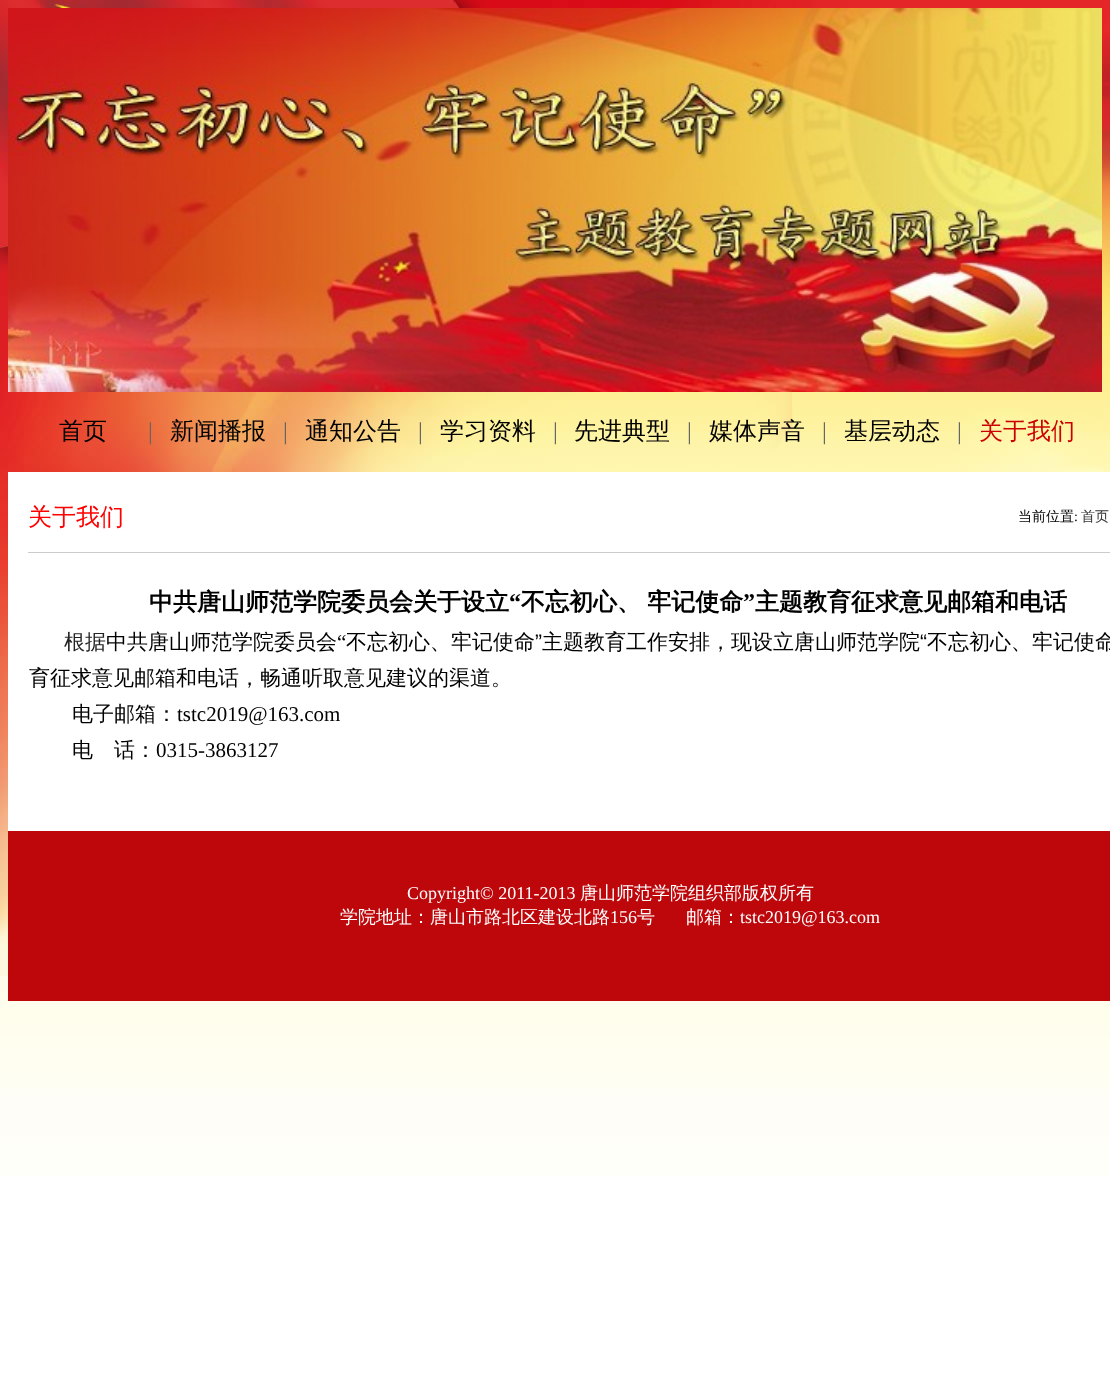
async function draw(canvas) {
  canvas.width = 1110
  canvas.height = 1379
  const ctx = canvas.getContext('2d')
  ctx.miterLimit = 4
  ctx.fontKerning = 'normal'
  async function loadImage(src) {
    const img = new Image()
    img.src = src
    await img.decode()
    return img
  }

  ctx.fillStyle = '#fff'
  ctx.fillRect(0, 0, 1110, 1379)
  ctx.drawImage(await loadImage('image0.png'), 0, 0, 1110, 1176)
  ctx.drawImage(await loadImage('image1.png'), 8, 392, 1094, 80)
  ctx.drawImage(await loadImage('image2.png'), 8, 8, 1094, 384)
  ctx.font = '500 24px WenQuanYi Zen Hei'
  ctx.fillStyle = '#000'
  ctx.fillText('首页', 59, 439)
  ctx.font = '24px Liberation Serif'
  ctx.fillStyle = '#666'
  ctx.fillText('|', 148, 439)
  ctx.font = '500 24px WenQuanYi Zen Hei'
  ctx.fillStyle = '#000'
  ctx.fillText('新闻播报', 170, 439)
  ctx.font = '24px Liberation Serif'
  ctx.fillStyle = '#666'
  ctx.fillText('|', 283, 439)
  ctx.font = '500 24px WenQuanYi Zen Hei'
  ctx.fillStyle = '#000'
  ctx.fillText('通知公告', 305, 439)
  ctx.font = '24px Liberation Serif'
  ctx.fillStyle = '#666'
  ctx.fillText('|', 418, 439)
  ctx.font = '500 24px WenQuanYi Zen Hei'
  ctx.fillStyle = '#000'
  ctx.fillText('学习资料', 440, 439)
  ctx.font = '24px Liberation Serif'
  ctx.fillStyle = '#666'
  ctx.fillText('|', 553, 439)
  ctx.font = '500 24px WenQuanYi Zen Hei'
  ctx.fillStyle = '#000'
  ctx.fillText('先进典型', 574, 439)
  ctx.font = '24px Liberation Serif'
  ctx.fillStyle = '#666'
  ctx.fillText('|', 687, 439)
  ctx.font = '500 24px WenQuanYi Zen Hei'
  ctx.fillStyle = '#000'
  ctx.fillText('媒体声音', 709, 439)
  ctx.font = '24px Liberation Serif'
  ctx.fillStyle = '#666'
  ctx.fillText('|', 822, 439)
  ctx.font = '500 24px WenQuanYi Zen Hei'
  ctx.fillStyle = '#000'
  ctx.fillText('基层动态', 844, 439)
  ctx.font = '24px Liberation Serif'
  ctx.fillStyle = '#666'
  ctx.fillText('|', 957, 439)
  ctx.font = '500 24px WenQuanYi Zen Hei'
  ctx.fillStyle = '#c00'
  ctx.fillText('关于我们', 979, 439)
  ctx.fillStyle = '#fff'
  ctx.fillRect(8, 472, 1102, 359)
  ctx.fillStyle = '#ccc'
  ctx.fillRect(28, 552, 1082, 1)
  ctx.fillStyle = '#f00'
  ctx.fillText('关于我们', 28, 525)
  ctx.font = '500 14px WenQuanYi Zen Hei'
  ctx.fillStyle = '#000'
  ctx.fillText('当前位置', 1018, 521)
  ctx.font = '14px Liberation Serif'
  ctx.fillText(':', 1074, 521)
  ctx.font = '500 14px WenQuanYi Zen Hei'
  ctx.fillStyle = '#333'
  ctx.fillText('首页', 1081, 521)
  ctx.font = 'bold 24px WenQuanYi Zen Hei'
  ctx.fillStyle = '#000'
  ctx.fillText('中共唐山师范学院委员会关于设立', 149, 610)
  ctx.font = 'bold 24px Liberation Serif'
  ctx.fillText('“', 509, 610)
  ctx.wordSpacing = '-1px'
  ctx.font = 'bold 24px WenQuanYi Zen Hei'
  ctx.fillText('不忘初心、 牢记使命', 521, 610)
  ctx.wordSpacing = '0px'
  ctx.font = 'bold 24px Liberation Serif'
  ctx.fillText('”', 743, 610)
  ctx.font = 'bold 24px WenQuanYi Zen Hei'
  ctx.fillText('主题教育征求意见邮箱和电话', 755, 610)
  ctx.font = '500 21px WenQuanYi Zen Hei'
  ctx.fillStyle = '#222'
  ctx.fillText('根据', 64, 649)
  ctx.fillStyle = '#000'
  ctx.fillText('中共唐山师范学院委员会', 106, 649)
  ctx.font = '21px Liberation Serif'
  ctx.fillText('“', 337, 649)
  ctx.font = '500 21px WenQuanYi Zen Hei'
  ctx.fillText('不忘初心、牢记使命', 346, 649)
  ctx.font = '21px Liberation Sans'
  ctx.fillText('”', 535, 649)
  ctx.font = '500 21px WenQuanYi Zen Hei'
  ctx.fillText('主题教育工作安排，现设立唐山师范学院', 542, 649)
  ctx.font = '21px Liberation Sans'
  ctx.fillText('“', 920, 649)
  ctx.font = '500 21px WenQuanYi Zen Hei'
  ctx.fillText('不忘初心、牢记使命', 927, 649)
  ctx.fillText('育征求意见邮箱和电话，畅通听取意见建议的渠道。', 29, 685)
  ctx.fillText('电子邮箱：', 72, 721)
  ctx.font = '21px Liberation Serif'
  ctx.fillText('tstc2019@163.com', 177, 721)
  ctx.font = '500 21px WenQuanYi Zen Hei'
  ctx.fillText('电', 72, 757)
  ctx.fillText('话：', 114, 757)
  ctx.font = '21px Liberation Serif'
  ctx.fillText('0315-3863127', 156, 757)
  ctx.fillStyle = '#bd070b'
  ctx.fillRect(8, 831, 1102, 170)
  ctx.font = '18px Liberation Serif'
  ctx.fillStyle = '#fff'
  ctx.fillText('Copyright© 2011-2013', 407, 899)
  ctx.font = '500 18px WenQuanYi Zen Hei'
  ctx.fillText('唐山师范学院组织部版权所有', 580, 899)
  ctx.fillText('学院地址：唐山市路北区建设北路', 340, 923)
  ctx.font = '18px Liberation Serif'
  ctx.fillText('156', 610, 923)
  ctx.font = '500 18px WenQuanYi Zen Hei'
  ctx.fillText('号', 637, 923)
  ctx.fillText('邮箱：', 686, 923)
  ctx.font = '18px Liberation Serif'
  ctx.fillText('tstc2019@163.com', 740, 923)
}

draw(document.querySelector('canvas'))
